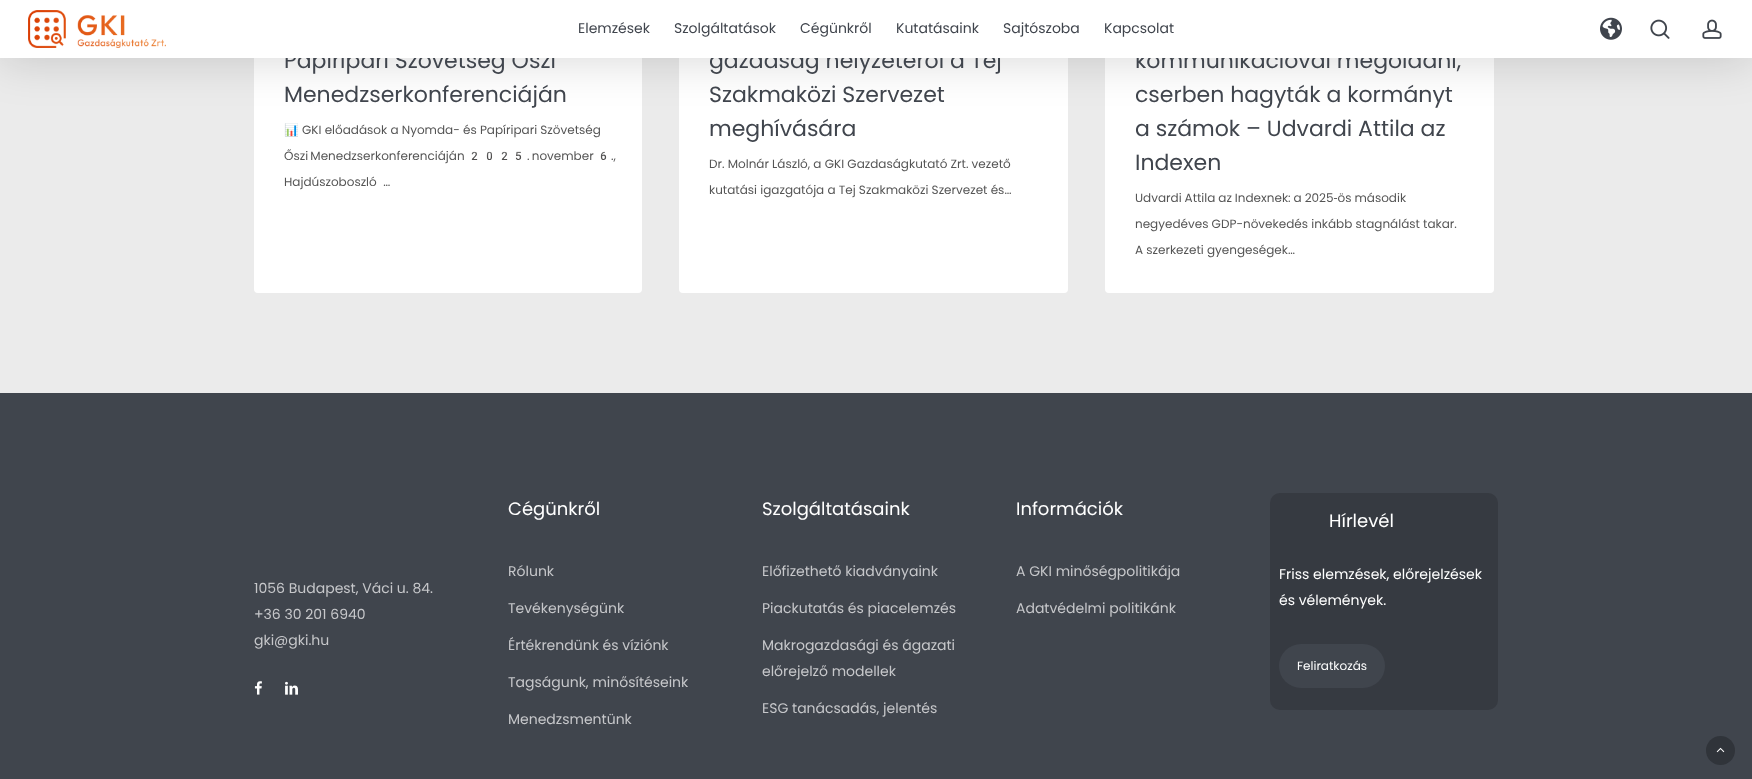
async function draw(canvas) {
  canvas.width = 1752
  canvas.height = 779
  const ctx = canvas.getContext('2d')
  ctx.miterLimit = 4
  ctx.fontKerning = 'normal'
  async function loadImage(src) {
    const img = new Image()
    img.src = src
    await img.decode()
    return img
  }

  ctx.fillStyle = '#ebebeb'
  ctx.fillRect(0, 0, 1752, 779)
  ctx.fillStyle = '#fff'
  ctx.beginPath()
  ctx.roundRect(254, -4, 388, 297, 4)
  ctx.fill()
  ctx.beginPath()
  ctx.roundRect(679, -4, 389, 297, 4)
  ctx.fill()
  ctx.beginPath()
  ctx.roundRect(1105, -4, 389, 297, 4)
  ctx.fill()
  ctx.fillStyle = '#00000026'
  ctx.filter = 'blur(22.5px)'
  ctx.beginPath()
  ctx.rect(0, 3, 1752, 58)
  ctx.fill()
  ctx.filter = 'none'
  ctx.font = '22px Poppins'
  ctx.fillStyle = '#40454d'
  ctx.fillText('Papíripari Szövetség Őszi', 284, 68)
  ctx.fillText('gazdaság helyzetéről a Tej', 709, 68)
  ctx.fillText('kommunikációval megoldani,', 1135, 68)
  ctx.fillStyle = '#fff'
  ctx.fillRect(0, 0, 1752, 58)
  ctx.drawImage(await loadImage('image0.png'), 28, 10, 138, 38)
  ctx.font = '14px Poppins'
  ctx.fillStyle = '#40454d'
  ctx.fillText('Elemzések', 578, 33)
  ctx.fillText('Szolgáltatások', 674, 33)
  ctx.fillText('Cégünkről', 800, 33)
  ctx.fillText('Kutatásaink', 896, 33)
  ctx.fillText('Sajtószoba', 1003, 33)
  ctx.fillText('Kapcsolat', 1104, 33)
  ctx.drawImage(await loadImage('image1.png'), 1600, 17, 22, 23)
  ctx.drawImage(await loadImage('image2.png'), 1650, 19, 20, 20)
  ctx.drawImage(await loadImage('image3.png'), 1702, 19, 20, 20)
  ctx.font = '22px Poppins'
  ctx.fillText('Menedzserkonferenciáján', 284, 102)
  ctx.font = '12px Noto Color Emoji'
  ctx.fillStyle = '#555'
  ctx.fillText('📊', 284, 134)
  ctx.font = '12px Poppins'
  ctx.fillText('GKI előadások a Nyomda- és Papíripari Szövetség', 302, 134)
  ctx.wordSpacing = '-1px'
  ctx.fillText('Őszi Menedzserkonferenciáján', 284, 160)
  ctx.wordSpacing = '0px'
  ctx.font = '12px Noto Color Emoji'
  ctx.fillText('2025', 467, 160)
  ctx.wordSpacing = '-1px'
  ctx.font = '12px Poppins'
  ctx.fillText('. november', 527, 160)
  ctx.wordSpacing = '0px'
  ctx.font = '12px Noto Color Emoji'
  ctx.fillText('6', 596, 160)
  ctx.font = '12px Poppins'
  ctx.fillText('.,', 611, 160)
  ctx.fillText('Hajdúszoboszló  …', 284, 186)
  ctx.font = '22px Poppins'
  ctx.fillStyle = '#40454d'
  ctx.fillText('Szakmaközi Szervezet', 709, 102)
  ctx.fillText('meghívására', 709, 136)
  ctx.font = '12px Poppins'
  ctx.fillStyle = '#555'
  ctx.fillText('Dr. Molnár László, a GKI Gazdaságkutató Zrt. vezető', 709, 168)
  ctx.fillText('kutatási igazgatója a Tej Szakmaközi Szervezet és…', 709, 194)
  ctx.font = '22px Poppins'
  ctx.fillStyle = '#40454d'
  ctx.fillText('cserben hagyták a kormányt', 1135, 102)
  ctx.fillText('a számok – Udvardi Attila az', 1135, 136)
  ctx.fillText('Indexen', 1135, 170)
  ctx.wordSpacing = '-0.25px'
  ctx.font = '12px Poppins'
  ctx.fillStyle = '#555'
  ctx.fillText('Udvardi Attila az Indexnek: a 2025‑ös második', 1135, 202)
  ctx.wordSpacing = '0px'
  ctx.fillText('negyedéves GDP-növekedés inkább stagnálást takar.', 1135, 228)
  ctx.fillText('A szerkezeti gyengeségek…', 1135, 254)
  ctx.fillStyle = '#40454d'
  ctx.fillRect(0, 393, 1752, 386)
  ctx.font = '14px Poppins'
  ctx.fillStyle = '#c6c7ca'
  ctx.fillText('1056 Budapest, Váci u. 84.', 254, 593)
  ctx.fillText('+36 30 201 6940', 254, 619)
  ctx.fillText('gki@gki.hu', 254, 645)
  ctx.drawImage(await loadImage('image4.png'), 254, 681, 8, 14)
  ctx.drawImage(await loadImage('image5.png'), 285, 681, 13, 14)
  ctx.font = '18px Poppins'
  ctx.fillStyle = '#fff'
  ctx.fillText('Cégünkről', 508, 515)
  ctx.font = '14px Poppins'
  ctx.fillStyle = '#c6c7ca'
  ctx.fillText('Rólunk', 508, 576)
  ctx.fillText('Tevékenységünk', 508, 613)
  ctx.fillText('Értékrendünk és víziónk', 508, 650)
  ctx.fillText('Tagságunk, minősítéseink', 508, 687)
  ctx.fillText('Menedzsmentünk', 508, 724)
  ctx.font = '18px Poppins'
  ctx.fillStyle = '#fff'
  ctx.fillText('Szolgáltatásaink', 762, 515)
  ctx.font = '14px Poppins'
  ctx.fillStyle = '#c6c7ca'
  ctx.fillText('Előfizethető kiadványaink', 762, 576)
  ctx.fillText('Piackutatás és piacelemzés', 762, 613)
  ctx.fillText('Makrogazdasági és ágazati', 762, 650)
  ctx.fillText('előrejelző modellek', 762, 676)
  ctx.fillText('ESG tanácsadás, jelentés', 762, 713)
  ctx.font = '18px Poppins'
  ctx.fillStyle = '#fff'
  ctx.fillText('Információk', 1016, 515)
  ctx.font = '14px Poppins'
  ctx.fillStyle = '#c6c7ca'
  ctx.fillText('A GKI minőségpolitikája', 1016, 576)
  ctx.fillText('Adatvédelmi politikánk', 1016, 613)
  ctx.fillStyle = '#363a41'
  ctx.beginPath()
  ctx.roundRect(1270, 493, 228, 217, 10)
  ctx.fill()
  ctx.font = '18px Poppins'
  ctx.fillStyle = '#fff'
  ctx.fillText('Hírlevél', 1329, 527)
  ctx.font = '14px Poppins'
  ctx.fillText('Friss elemzések, előrejelzések', 1279, 579)
  ctx.fillText('és vélemények.', 1279, 605)
  ctx.fillStyle = '#40454d'
  ctx.beginPath()
  ctx.roundRect(1279, 644, 106, 44, 22)
  ctx.fill()
  ctx.font = '12px Poppins'
  ctx.fillStyle = '#fff'
  ctx.fillText('Feliratkozás', 1297, 670)
  ctx.fillStyle = '#30343a'
  ctx.beginPath()
  ctx.arc(1720.5, 750.5, 14.5, 0, 2 * Math.PI)
  ctx.fill()
  ctx.drawImage(await loadImage('image6.png'), 1716, 747, 9, 6)
}

draw(document.querySelector('canvas'))
